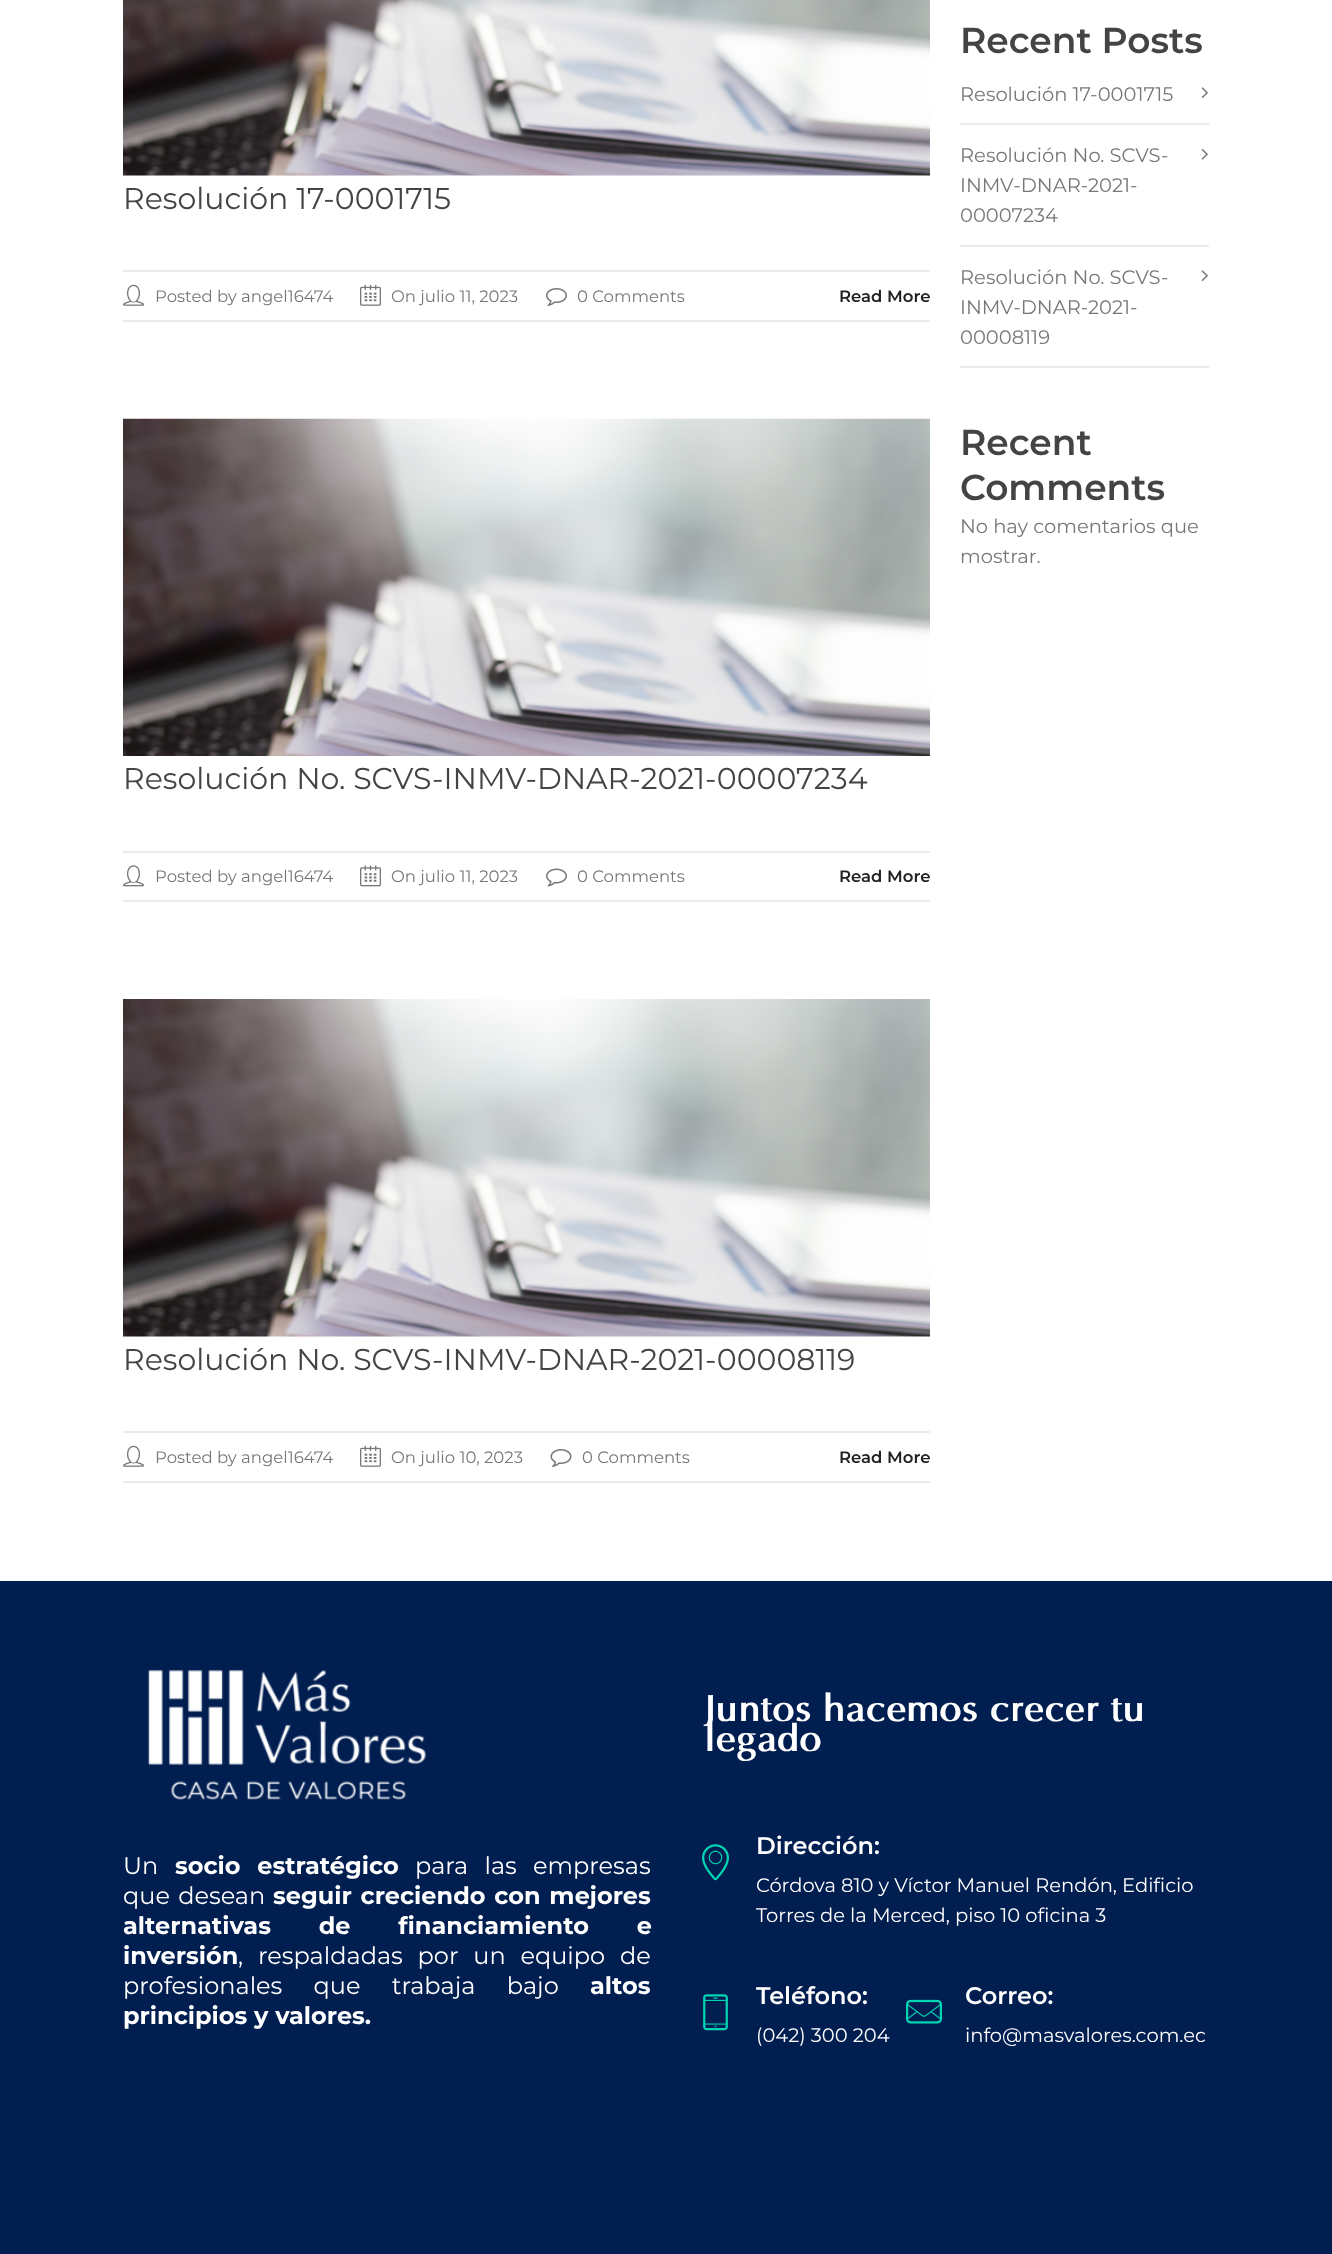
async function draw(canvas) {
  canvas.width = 1332
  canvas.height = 2254
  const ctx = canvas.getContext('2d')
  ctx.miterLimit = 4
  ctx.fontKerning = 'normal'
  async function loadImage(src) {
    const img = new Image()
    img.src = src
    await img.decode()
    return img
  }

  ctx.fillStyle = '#fff'
  ctx.fillRect(0, 0, 1332, 2254)
  ctx.drawImage(await loadImage('image0.png'), 123, 0, 807, 176)
  ctx.font = '30px Montserrat'
  ctx.fillStyle = '#444'
  ctx.fillText('Resolución 17-0001715', 123, 209)
  ctx.fillStyle = '#ebebeb'
  ctx.fillRect(123, 270, 807, 2)
  ctx.fillRect(123, 320, 807, 2)
  ctx.drawImage(await loadImage('image1.png'), 123, 284, 21, 22)
  ctx.font = '16.5px Montserrat'
  ctx.fillStyle = '#777'
  ctx.fillText('Posted by angel16474', 155, 302)
  ctx.drawImage(await loadImage('image2.png'), 360, 284, 21, 22)
  ctx.fillText('On julio 11, 2023', 391, 302)
  ctx.drawImage(await loadImage('image3.png'), 546, 288, 21, 18)
  ctx.fillText('0 Comments', 577, 302)
  ctx.font = '600 16.5px Montserrat'
  ctx.fillStyle = '#222'
  ctx.fillText('Read More', 839, 302)
  ctx.drawImage(await loadImage('image4.png'), 123, 418, 807, 338)
  ctx.font = '30px Montserrat'
  ctx.fillStyle = '#444'
  ctx.fillText('Resolución No. SCVS-INMV-DNAR-2021-00007234', 123, 789)
  ctx.fillStyle = '#ebebeb'
  ctx.fillRect(123, 851, 807, 2)
  ctx.fillRect(123, 900, 807, 2)
  ctx.drawImage(await loadImage('image5.png'), 123, 865, 21, 22)
  ctx.font = '16.5px Montserrat'
  ctx.fillStyle = '#777'
  ctx.fillText('Posted by angel16474', 155, 882)
  ctx.drawImage(await loadImage('image6.png'), 360, 865, 21, 22)
  ctx.fillText('On julio 11, 2023', 391, 882)
  ctx.drawImage(await loadImage('image7.png'), 546, 868, 21, 19)
  ctx.fillText('0 Comments', 577, 882)
  ctx.font = '600 16.5px Montserrat'
  ctx.fillStyle = '#222'
  ctx.fillText('Read More', 839, 882)
  ctx.drawImage(await loadImage('image8.png'), 123, 999, 807, 338)
  ctx.font = '30px Montserrat'
  ctx.fillStyle = '#444'
  ctx.fillText('Resolución No. SCVS-INMV-DNAR-2021-00008119', 123, 1370)
  ctx.fillStyle = '#ebebeb'
  ctx.fillRect(123, 1431, 807, 2)
  ctx.fillRect(123, 1481, 807, 2)
  ctx.drawImage(await loadImage('image1.png'), 123, 1445, 21, 22)
  ctx.font = '16.5px Montserrat'
  ctx.fillStyle = '#777'
  ctx.fillText('Posted by angel16474', 155, 1463)
  ctx.drawImage(await loadImage('image2.png'), 360, 1445, 21, 22)
  ctx.fillText('On julio 10, 2023', 391, 1463)
  ctx.drawImage(await loadImage('image9.png'), 550, 1449, 22, 18)
  ctx.fillText('0 Comments', 582, 1463)
  ctx.font = '600 16.5px Montserrat'
  ctx.fillStyle = '#222'
  ctx.fillText('Read More', 839, 1463)
  ctx.font = '600 36px Montserrat'
  ctx.fillStyle = '#444'
  ctx.fillText('Recent Posts', 960, 53)
  ctx.fillStyle = '#ebebeb'
  ctx.fillRect(960, 123, 249, 2)
  ctx.font = '19.5px Montserrat'
  ctx.fillStyle = '#777'
  ctx.fillText('Resolución 17-0001715', 960, 101)
  ctx.drawImage(await loadImage('image10.png'), 1201, 87, 7, 12)
  ctx.fillStyle = '#ebebeb'
  ctx.fillRect(960, 245, 249, 2)
  ctx.fillStyle = '#777'
  ctx.fillText('Resolución No. SCVS-', 960, 162)
  ctx.drawImage(await loadImage('image11.png'), 1201, 148, 7, 12)
  ctx.fillText('INMV-DNAR-2021-', 960, 192)
  ctx.fillText('00007234', 960, 222)
  ctx.fillStyle = '#ebebeb'
  ctx.fillRect(960, 366, 249, 2)
  ctx.fillStyle = '#777'
  ctx.fillText('Resolución No. SCVS-', 960, 284)
  ctx.drawImage(await loadImage('image10.png'), 1201, 270, 7, 12)
  ctx.fillText('INMV-DNAR-2021-', 960, 314)
  ctx.fillText('00008119', 960, 344)
  ctx.font = '600 36px Montserrat'
  ctx.fillStyle = '#444'
  ctx.fillText('Recent', 960, 455)
  ctx.fillText('Comments', 960, 500)
  ctx.font = '19.5px Montserrat'
  ctx.fillStyle = '#777'
  ctx.fillText('No hay comentarios que', 960, 533)
  ctx.fillText('mostrar.', 960, 563)
  ctx.fillStyle = '#001e50'
  ctx.fillRect(0, 1581, 1332, 673)
  ctx.drawImage(await loadImage('image12.png'), 147, 1669, 279, 131)
  ctx.font = '24px Montserrat'
  ctx.fillStyle = '#fff'
  ctx.fillText('Un', 123, 1874)
  ctx.wordSpacing = '10px'
  ctx.font = 'bold 24px Montserrat'
  ctx.fillText('socio estratégico', 175, 1874)
  ctx.font = '24px Montserrat'
  ctx.fillText('para las empresas', 415, 1874)
  ctx.wordSpacing = '2px'
  ctx.fillText('que desean', 123, 1904)
  ctx.font = 'bold 24px Montserrat'
  ctx.fillText('seguir creciendo con mejores', 273, 1904)
  ctx.wordSpacing = '41px'
  ctx.fillText('alternativas de financiamiento e', 123, 1934)
  ctx.wordSpacing = '0px'
  ctx.fillText('inversión', 123, 1964)
  ctx.wordSpacing = '8.5px'
  ctx.font = '24px Montserrat'
  ctx.fillText(', respaldadas por un equipo de', 238, 1964)
  ctx.wordSpacing = '25px'
  ctx.fillText('profesionales que trabaja bajo', 123, 1994)
  ctx.wordSpacing = '0px'
  ctx.font = 'bold 24px Montserrat'
  ctx.fillText('altos', 590, 1994)
  ctx.fillText('principios y valores.', 123, 2024)
  ctx.font = 'bold 37.5px Optima'
  ctx.fillText('Juntos hacemos crecer tu', 704, 1721)
  ctx.fillText('legado', 704, 1751)
  ctx.drawImage(await loadImage('image13.png'), 702, 1844, 27, 37)
  ctx.font = '600 24px Montserrat'
  ctx.fillText('Dirección:', 756, 1854)
  ctx.font = '19.5px Montserrat'
  ctx.fillText('Córdova 810 y Víctor Manuel Rendón, Edificio', 756, 1892)
  ctx.fillText('Torres de la Merced, piso 10 oficina 3', 756, 1922)
  ctx.drawImage(await loadImage('image14.png'), 703, 1994, 25, 37)
  ctx.font = '600 24px Montserrat'
  ctx.fillText('Teléfono:', 756, 2004)
  ctx.font = '19.5px Montserrat'
  ctx.fillText('(042) 300 204', 756, 2042)
  ctx.drawImage(await loadImage('image15.png'), 906, 1999, 36, 25)
  ctx.font = '600 24px Montserrat'
  ctx.fillText('Correo:', 965, 2004)
  ctx.font = '19.5px Montserrat'
  ctx.fillText('info@masvalores.com.ec', 965, 2042)
}

draw(document.querySelector('canvas'))
